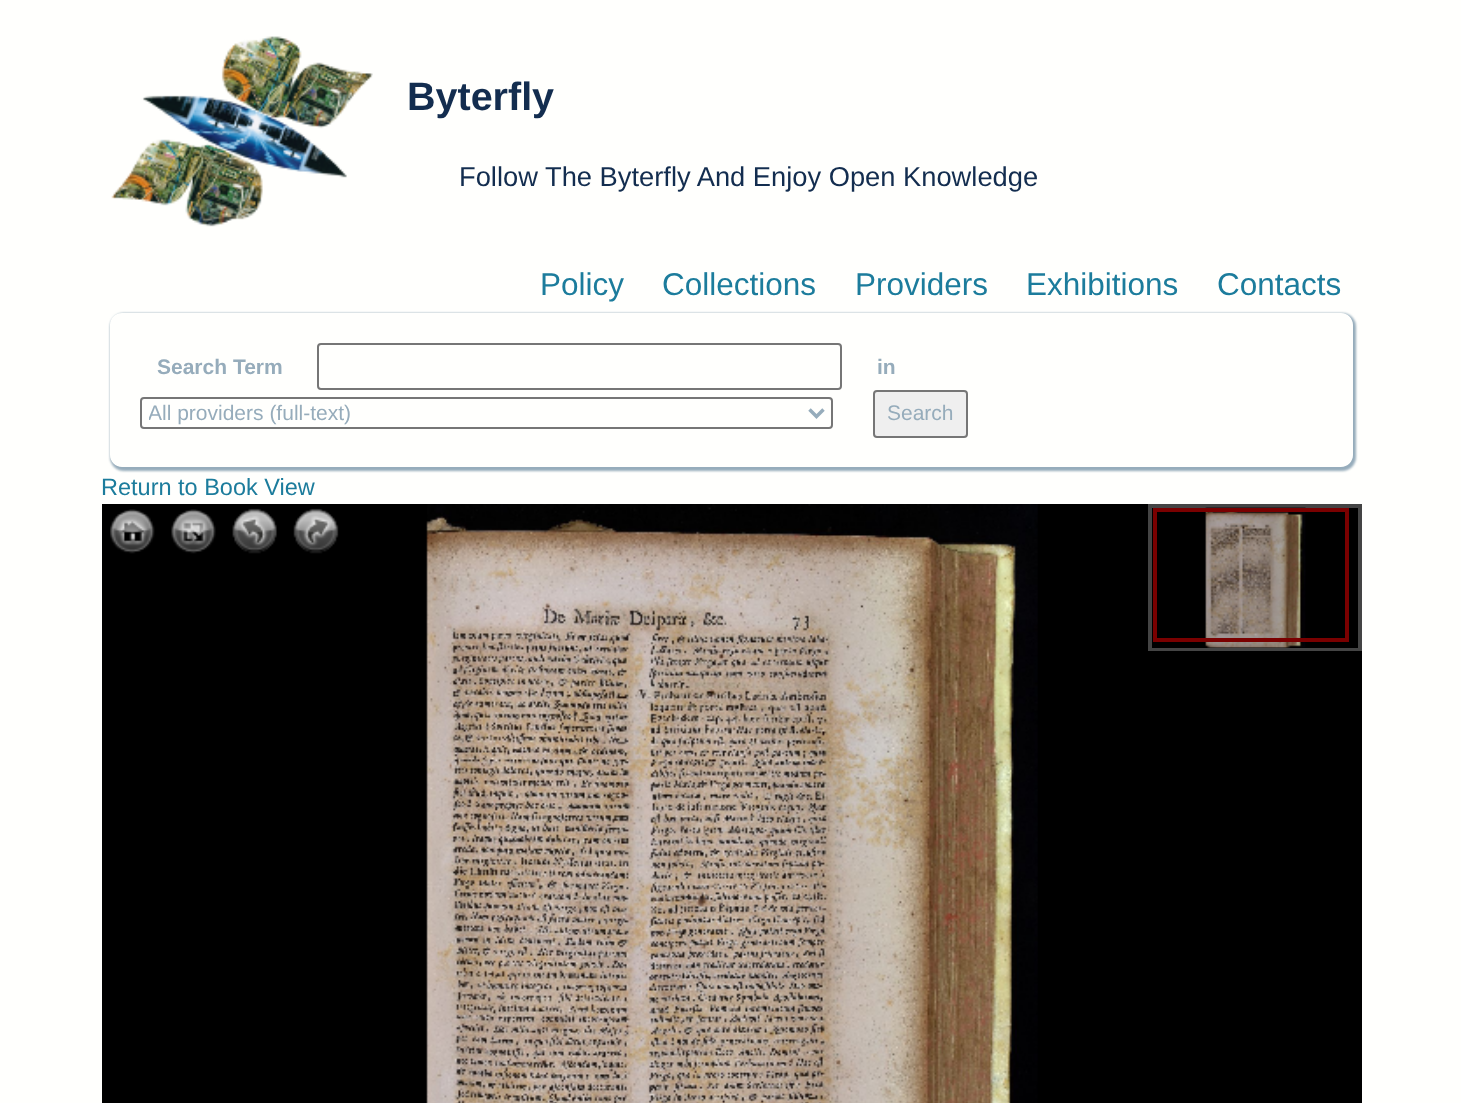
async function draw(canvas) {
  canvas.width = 1461
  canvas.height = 1103
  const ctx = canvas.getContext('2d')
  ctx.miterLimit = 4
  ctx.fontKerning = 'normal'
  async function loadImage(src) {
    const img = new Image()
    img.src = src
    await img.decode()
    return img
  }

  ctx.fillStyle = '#fffffd'
  ctx.fillRect(0, 0, 1461, 1103)
  ctx.drawImage(await loadImage('image0.png'), 111, 36, 262, 191)
  ctx.font = 'bold 39.5px Liberation Sans'
  ctx.fillStyle = '#132d4f'
  ctx.fillText('Byterfly', 407, 110)
  ctx.font = '27.3px Liberation Sans'
  ctx.fillText('Follow The Byterfly And Enjoy Open Knowledge', 459, 186)
  ctx.font = '31.5px Liberation Sans'
  ctx.fillStyle = '#1c7c9c'
  ctx.fillText('Policy', 540, 295)
  ctx.fillText('Collections', 662, 295)
  ctx.fillText('Providers', 855, 295)
  ctx.fillText('Exhibitions', 1026, 295)
  ctx.fillText('Contacts', 1217, 295)
  ctx.save()
  ctx.beginPath()
  ctx.moveTo(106, 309)
  ctx.lineTo(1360, 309)
  ctx.lineTo(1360, 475)
  ctx.lineTo(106, 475)
  ctx.closePath()
  ctx.moveTo(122, 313)
  ctx.lineTo(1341, 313)
  ctx.bezierCurveTo(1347.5, 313, 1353, 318.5, 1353, 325)
  ctx.lineTo(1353, 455)
  ctx.bezierCurveTo(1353, 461.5, 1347.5, 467, 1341, 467)
  ctx.lineTo(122, 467)
  ctx.bezierCurveTo(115.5, 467, 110, 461.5, 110, 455)
  ctx.lineTo(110, 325)
  ctx.bezierCurveTo(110, 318.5, 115.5, 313, 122, 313)
  ctx.closePath()
  ctx.clip('evenodd')
  ctx.fillStyle = '#96acbb'
  ctx.filter = 'blur(1px)'
  ctx.beginPath()
  ctx.roundRect(110, 313, 1246, 158, 14)
  ctx.fill()
  ctx.filter = 'none'
  ctx.restore()
  ctx.font = 'bold 21px Liberation Sans'
  ctx.fillStyle = '#96acbb'
  ctx.fillText('Search Term', 157, 374)
  ctx.beginPath()
  ctx.roundRect(318, 344, 523, 45, 3)
  ctx.strokeStyle = '#767676'
  ctx.lineWidth = 2
  ctx.stroke()
  ctx.fillText('in', 877, 374)
  ctx.beginPath()
  ctx.roundRect(141, 398, 691, 30, 3)
  ctx.stroke()
  ctx.beginPath()
  ctx.moveTo(809.5, 409.5)
  ctx.lineTo(816.5, 416.5)
  ctx.lineTo(823.5, 409.5)
  ctx.strokeStyle = '#96acbb'
  ctx.lineWidth = 3.5
  ctx.stroke()
  ctx.save()
  ctx.beginPath()
  ctx.rect(149, 399, 654, 28)
  ctx.clip()
  ctx.font = '21px Liberation Sans'
  ctx.fillText('All providers (full-text)', 148, 420)
  ctx.restore()
  ctx.fillStyle = '#efefef'
  ctx.beginPath()
  ctx.roundRect(874, 391, 93, 46, 3)
  ctx.fill()
  ctx.strokeStyle = '#767676'
  ctx.lineWidth = 2
  ctx.stroke()
  ctx.font = '21px Liberation Sans'
  ctx.fillStyle = '#96acbb'
  ctx.fillText('Search', 887, 420)
  ctx.font = '23.5px Liberation Sans'
  ctx.fillStyle = '#1c7c9c'
  ctx.fillText('Return to Book View', 101, 495)
  ctx.fillStyle = '#000'
  ctx.fillRect(102, 504, 1260, 599)
  ctx.drawImage(await loadImage('image1.png'), 426, 504, 612, 599)
  ctx.drawImage(await loadImage('image2.png'), 110, 509, 45, 45)
  ctx.drawImage(await loadImage('image3.png'), 171, 509, 45, 45)
  ctx.drawImage(await loadImage('image4.png'), 232, 508, 45, 46)
  ctx.drawImage(await loadImage('image5.png'), 293, 508, 46, 46)
  ctx.strokeStyle = '#444'
  ctx.lineWidth = 4
  ctx.strokeRect(1150, 506, 210, 143)
  ctx.fillRect(1152, 647, 206, 1)
  ctx.drawImage(await loadImage('image6.png'), 1205, 507, 101, 141)
  ctx.strokeStyle = '#7a0000'
  ctx.strokeRect(1155, 510, 192, 130)
}

draw(document.querySelector('canvas'))
